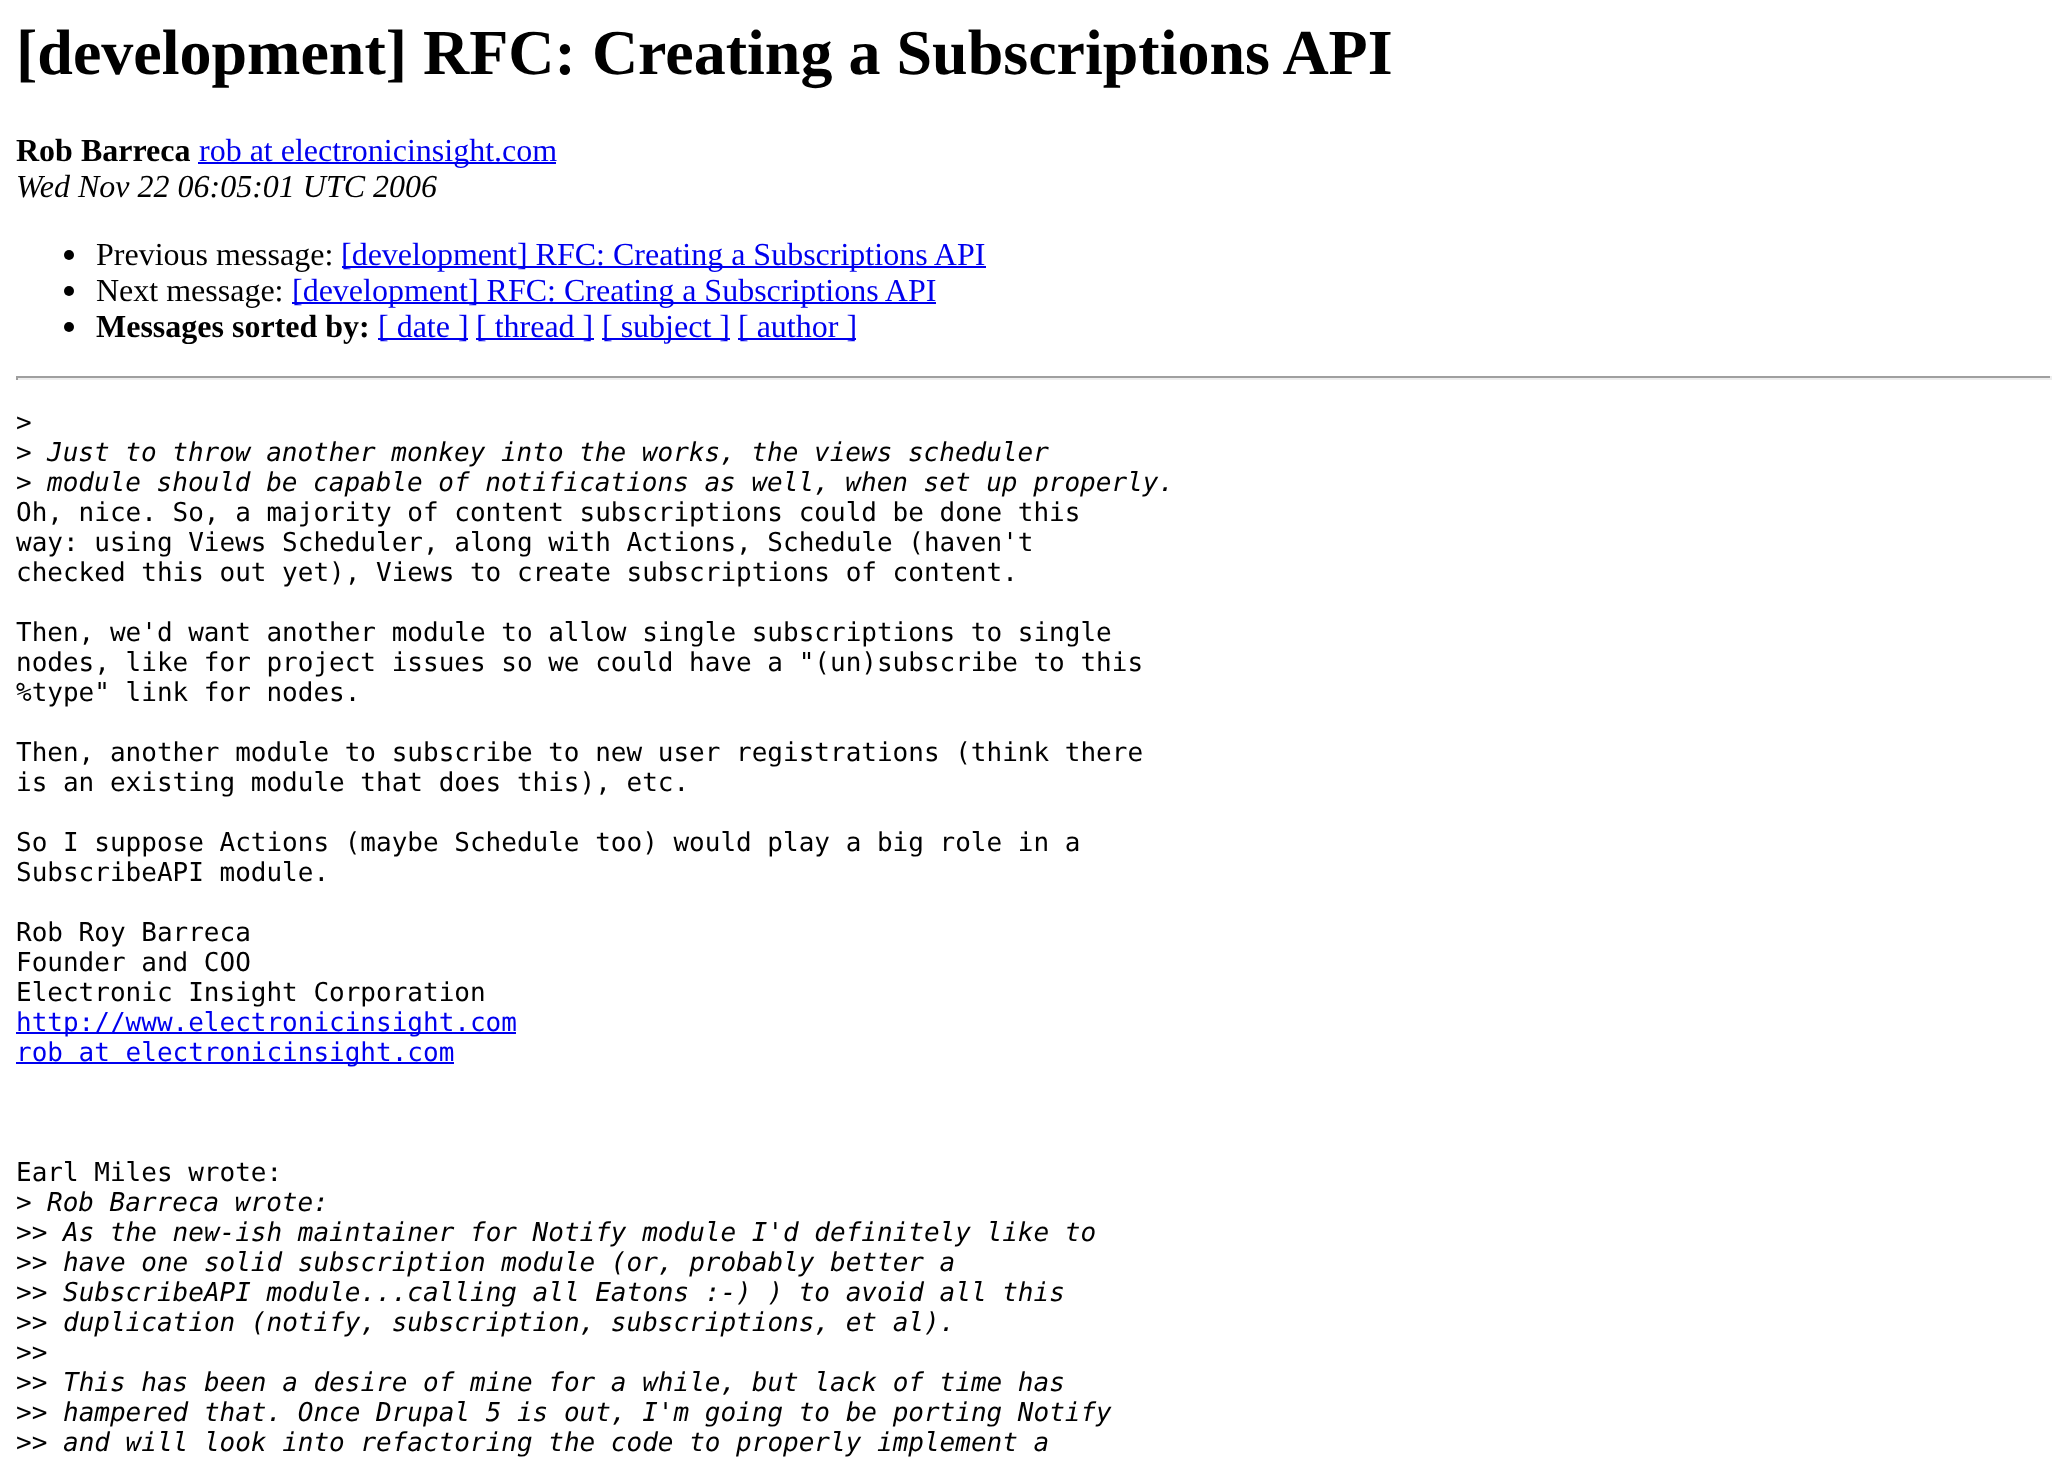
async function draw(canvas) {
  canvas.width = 2067
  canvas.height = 1463
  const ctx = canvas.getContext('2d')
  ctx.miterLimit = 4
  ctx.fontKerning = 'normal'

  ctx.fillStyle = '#fff'
  ctx.fillRect(0, 0, 2067, 1463)
  ctx.font = 'bold 64px Liberation Serif'
  ctx.fillStyle = '#000'
  ctx.fillText('[development] RFC: Creating a Subscriptions API', 16, 74)
  ctx.font = 'bold 32px Liberation Serif'
  ctx.fillText('Rob Barreca', 16, 161)
  ctx.fillStyle = '#00e'
  ctx.fillRect(198, 162, 358, 2)
  ctx.font = '32px Liberation Serif'
  ctx.fillText('rob at electronicinsight.com', 199, 161)
  ctx.font = 'italic 32px Liberation Serif'
  ctx.fillStyle = '#000'
  ctx.fillText('Wed Nov 22 06:05:01 UTC 2006', 16, 197)
  ctx.beginPath()
  ctx.arc(69, 255, 5, 0, 2 * Math.PI)
  ctx.fill()
  ctx.font = '32px Liberation Serif'
  ctx.fillText('Previous message:', 96, 265)
  ctx.fillStyle = '#00e'
  ctx.fillRect(342, 266, 644, 2)
  ctx.fillText('[development] RFC: Creating a Subscriptions API', 341, 265)
  ctx.fillStyle = '#000'
  ctx.beginPath()
  ctx.arc(69, 291, 5, 0, 2 * Math.PI)
  ctx.fill()
  ctx.fillText('Next message:', 96, 301)
  ctx.fillStyle = '#00e'
  ctx.fillRect(292, 302, 644, 2)
  ctx.fillText('[development] RFC: Creating a Subscriptions API', 292, 301)
  ctx.fillStyle = '#000'
  ctx.beginPath()
  ctx.arc(69, 327, 5, 0, 2 * Math.PI)
  ctx.fill()
  ctx.font = 'bold 32px Liberation Serif'
  ctx.fillText('Messages sorted by:', 96, 337)
  ctx.fillStyle = '#00e'
  ctx.fillRect(378, 338, 90, 2)
  ctx.font = '32px Liberation Serif'
  ctx.fillText('[ date ]', 378, 337)
  ctx.fillRect(476, 338, 118, 2)
  ctx.fillText('[ thread ]', 476, 337)
  ctx.fillRect(602, 338, 128, 2)
  ctx.fillText('[ subject ]', 602, 337)
  ctx.fillRect(738, 338, 118, 2)
  ctx.fillText('[ author ]', 738, 337)
  ctx.fillStyle = '#9f9f9f'
  ctx.fillRect(16, 376, 2036, 2)
  ctx.fillStyle = '#eee'
  ctx.fillRect(2050, 376, 2, 4)
  ctx.fillRect(16, 378, 2036, 2)
  ctx.fillStyle = '#9f9f9f'
  ctx.fillRect(16, 376, 2, 4)
  ctx.font = '26px DejaVu Sans Mono'
  ctx.fillStyle = '#000'
  ctx.fillText('>', 16, 431)
  ctx.fillText('>', 16, 461)
  ctx.font = 'italic 26px DejaVu Sans Mono'
  ctx.fillText('Just to throw another monkey into the works, the views scheduler', 47, 461)
  ctx.font = '26px DejaVu Sans Mono'
  ctx.fillText('>', 16, 491)
  ctx.font = 'italic 26px DejaVu Sans Mono'
  ctx.fillText('module should be capable of notifications as well, when set up properly.', 47, 491)
  ctx.font = '26px DejaVu Sans Mono'
  ctx.fillText('Oh, nice. So, a majority of content subscriptions could be done this', 16, 521)
  ctx.fillText('way: using Views Scheduler, along with Actions, Schedule (haven\'t', 16, 551)
  ctx.fillText('checked this out yet), Views to create subscriptions of content.', 16, 581)
  ctx.fillText('Then, we\'d want another module to allow single subscriptions to single', 16, 641)
  ctx.fillText('nodes, like for project issues so we could have a "(un)subscribe to this', 16, 671)
  ctx.fillText('%type" link for nodes.', 16, 701)
  ctx.fillText('Then, another module to subscribe to new user registrations (think there', 16, 761)
  ctx.fillText('is an existing module that does this), etc.', 16, 791)
  ctx.fillText('So I suppose Actions (maybe Schedule too) would play a big role in a', 16, 851)
  ctx.fillText('SubscribeAPI module.', 16, 881)
  ctx.fillText('Rob Roy Barreca', 16, 941)
  ctx.fillText('Founder and COO', 16, 971)
  ctx.fillText('Electronic Insight Corporation', 16, 1001)
  ctx.fillStyle = '#00e'
  ctx.fillRect(16, 1032, 500, 2)
  ctx.fillText('http://www.electronicinsight.com', 16, 1031)
  ctx.fillRect(16, 1062, 438, 2)
  ctx.fillText('rob at electronicinsight.com', 16, 1061)
  ctx.fillStyle = '#000'
  ctx.fillText('Earl Miles wrote:', 16, 1181)
  ctx.fillText('>', 16, 1211)
  ctx.font = 'italic 26px DejaVu Sans Mono'
  ctx.fillText('Rob Barreca wrote:', 47, 1211)
  ctx.font = '26px DejaVu Sans Mono'
  ctx.fillText('>>', 16, 1241)
  ctx.font = 'italic 26px DejaVu Sans Mono'
  ctx.fillText('As the new-ish maintainer for Notify module I\'d definitely like to', 63, 1241)
  ctx.font = '26px DejaVu Sans Mono'
  ctx.fillText('>>', 16, 1271)
  ctx.font = 'italic 26px DejaVu Sans Mono'
  ctx.fillText('have one solid subscription module (or, probably better a', 63, 1271)
  ctx.font = '26px DejaVu Sans Mono'
  ctx.fillText('>>', 16, 1301)
  ctx.font = 'italic 26px DejaVu Sans Mono'
  ctx.fillText('SubscribeAPI module...calling all Eatons :-) ) to avoid all this', 63, 1301)
  ctx.font = '26px DejaVu Sans Mono'
  ctx.fillText('>>', 16, 1331)
  ctx.font = 'italic 26px DejaVu Sans Mono'
  ctx.fillText('duplication (notify, subscription, subscriptions, et al).', 63, 1331)
  ctx.font = '26px DejaVu Sans Mono'
  ctx.fillText('>>', 16, 1361)
  ctx.fillText('>>', 16, 1391)
  ctx.font = 'italic 26px DejaVu Sans Mono'
  ctx.fillText('This has been a desire of mine for a while, but lack of time has', 63, 1391)
  ctx.font = '26px DejaVu Sans Mono'
  ctx.fillText('>>', 16, 1421)
  ctx.font = 'italic 26px DejaVu Sans Mono'
  ctx.fillText('hampered that. Once Drupal 5 is out, I\'m going to be porting Notify', 63, 1421)
  ctx.font = '26px DejaVu Sans Mono'
  ctx.fillText('>>', 16, 1451)
  ctx.font = 'italic 26px DejaVu Sans Mono'
  ctx.fillText('and will look into refactoring the code to properly implement a', 63, 1451)
}

draw(document.querySelector('canvas'))
